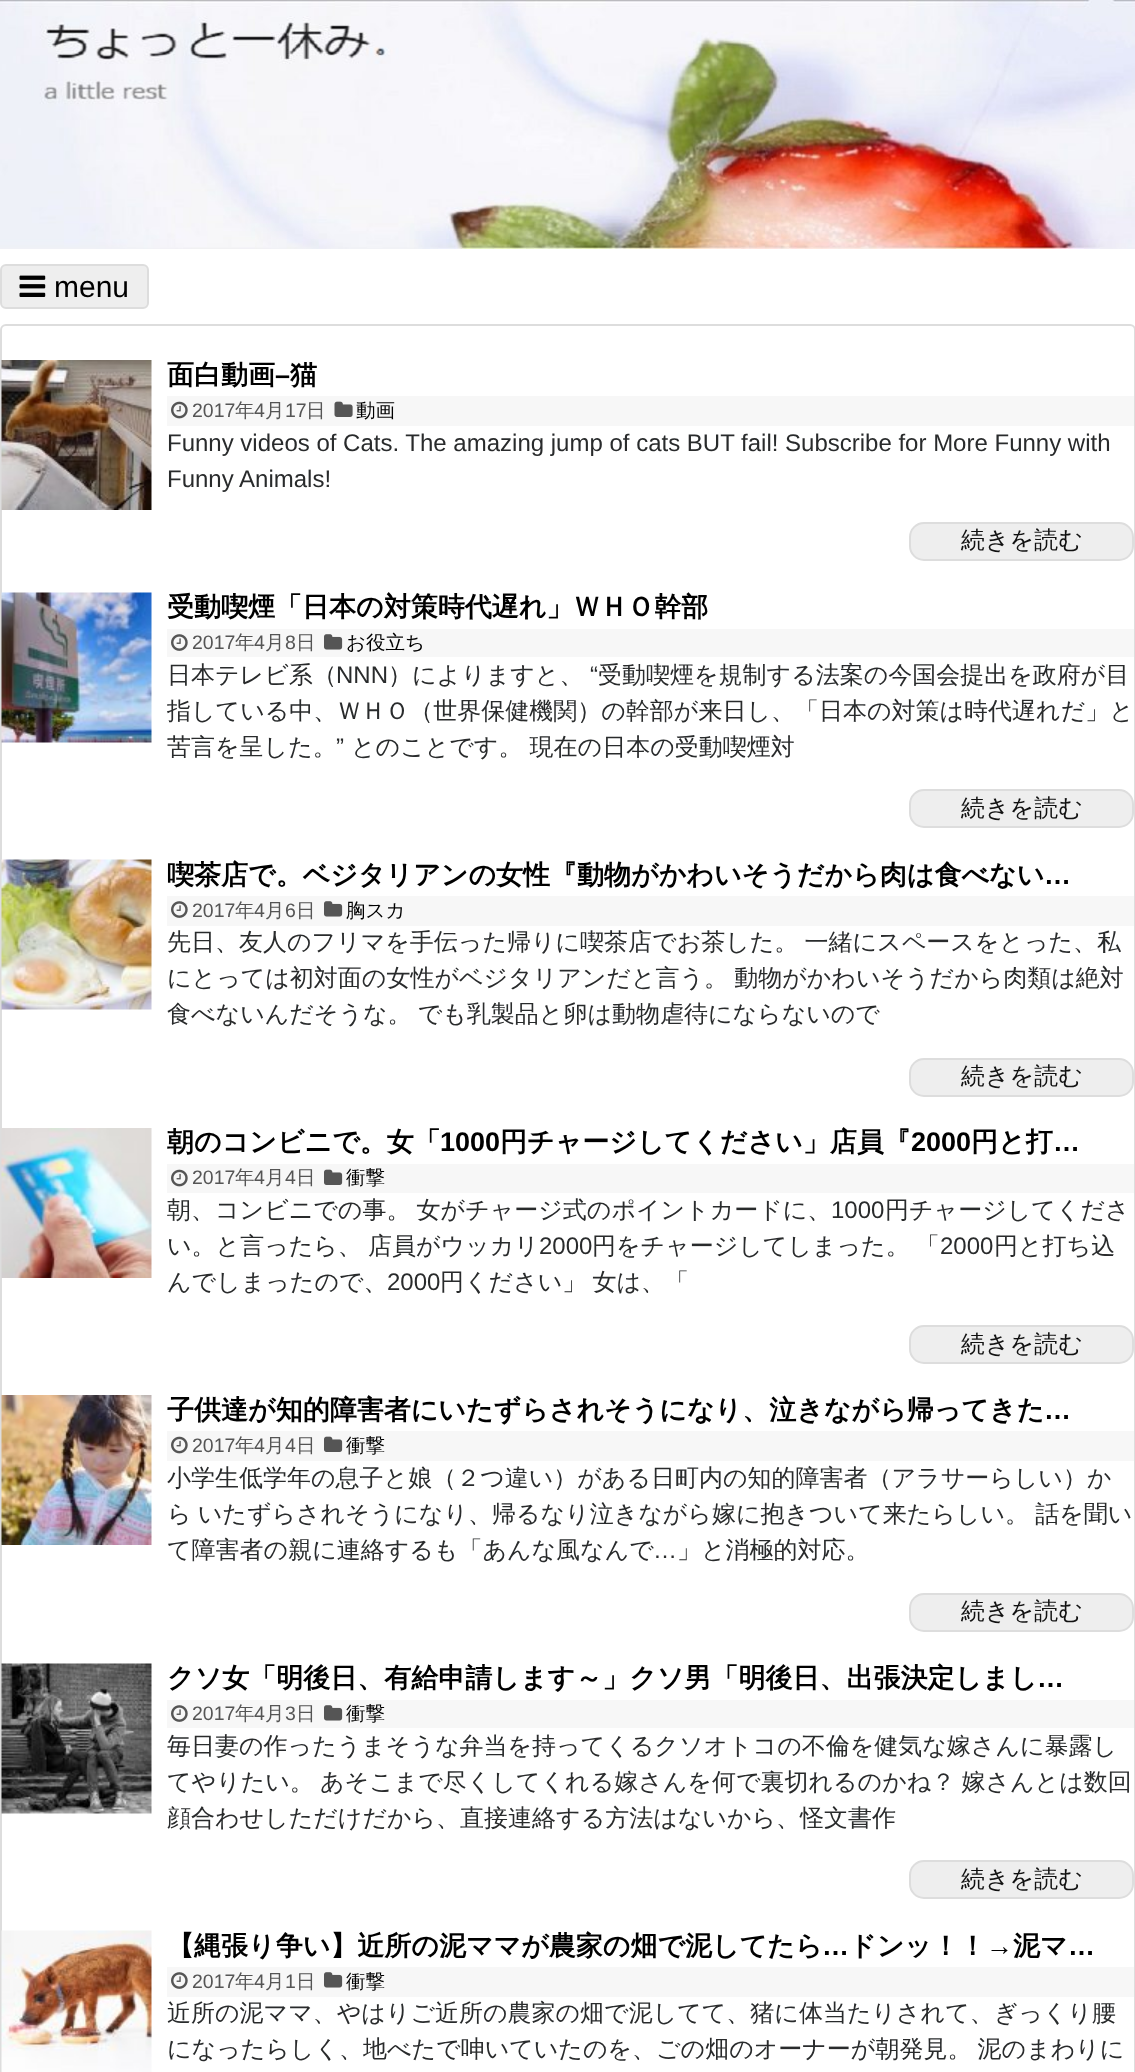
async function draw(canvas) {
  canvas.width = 1135
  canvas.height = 2072
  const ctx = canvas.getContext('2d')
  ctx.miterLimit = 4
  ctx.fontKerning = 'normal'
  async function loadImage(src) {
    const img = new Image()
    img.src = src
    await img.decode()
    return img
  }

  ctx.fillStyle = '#fff'
  ctx.fillRect(0, 0, 1135, 2072)
  ctx.drawImage(await loadImage('image0.png'), 0, 0, 1135, 249)
  ctx.fillStyle = '#eee'
  ctx.beginPath()
  ctx.roundRect(1, 265, 147, 43, 5)
  ctx.fill()
  ctx.strokeStyle = '#ddd'
  ctx.lineWidth = 2
  ctx.stroke()
  ctx.drawImage(await loadImage('image1.png'), 19, 275, 27, 22)
  ctx.font = '30px Liberation Sans'
  ctx.fillStyle = '#000'
  ctx.fillText('menu', 54, 297)
  ctx.beginPath()
  ctx.roundRect(1, 325, 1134, 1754, 5)
  ctx.stroke()
  ctx.drawImage(await loadImage('image2.png'), 1, 360, 151, 150)
  ctx.font = 'bold 27px WenQuanYi Zen Hei'
  ctx.fillText('面白動画', 167, 384)
  ctx.font = 'bold 27px Liberation Sans'
  ctx.fillText('–', 275, 384)
  ctx.font = 'bold 27px WenQuanYi Zen Hei'
  ctx.fillText('猫', 290, 384)
  ctx.fillStyle = '#f7f7f7'
  ctx.fillRect(167, 396, 967, 30)
  ctx.drawImage(await loadImage('image3.png'), 171, 401, 17, 18)
  ctx.font = '19.5px Liberation Sans'
  ctx.fillStyle = '#555'
  ctx.fillText('2017', 192, 417)
  ctx.font = '500 19.5px WenQuanYi Zen Hei'
  ctx.fillText('年', 235, 417)
  ctx.font = '19.5px Liberation Sans'
  ctx.fillText('4', 254, 417)
  ctx.font = '500 19.5px WenQuanYi Zen Hei'
  ctx.fillText('月', 265, 417)
  ctx.font = '19.5px Liberation Sans'
  ctx.fillText('17', 285, 417)
  ctx.font = '500 19.5px WenQuanYi Zen Hei'
  ctx.fillText('日', 306, 417)
  ctx.drawImage(await loadImage('image4.png'), 334, 401, 19, 16)
  ctx.fillStyle = '#000'
  ctx.fillText('動画', 356, 417)
  ctx.font = '24px Liberation Sans'
  ctx.fillStyle = '#292b2c'
  ctx.fillText('Funny videos of Cats. The amazing jump of cats BUT fail! Subscribe for More Funny with', 167, 451)
  ctx.fillText('Funny Animals!', 167, 487)
  ctx.fillStyle = '#eee'
  ctx.beginPath()
  ctx.roundRect(910, 523, 223, 37, 14)
  ctx.fill()
  ctx.stroke()
  ctx.font = '500 24px WenQuanYi Zen Hei'
  ctx.fillStyle = '#111'
  ctx.fillText('続きを読む', 961, 548)
  ctx.drawImage(await loadImage('image5.png'), 1, 592, 151, 151)
  ctx.font = 'bold 27px WenQuanYi Zen Hei'
  ctx.fillStyle = '#000'
  ctx.fillText('受動喫煙「日本の対策時代遅れ」ＷＨＯ幹部', 167, 616)
  ctx.fillStyle = '#f7f7f7'
  ctx.fillRect(167, 629, 967, 28)
  ctx.drawImage(await loadImage('image6.png'), 171, 634, 17, 17)
  ctx.font = '19.5px Liberation Sans'
  ctx.fillStyle = '#555'
  ctx.fillText('2017', 192, 649)
  ctx.font = '500 19.5px WenQuanYi Zen Hei'
  ctx.fillText('年', 235, 649)
  ctx.font = '19.5px Liberation Sans'
  ctx.fillText('4', 254, 649)
  ctx.font = '500 19.5px WenQuanYi Zen Hei'
  ctx.fillText('月', 265, 649)
  ctx.font = '19.5px Liberation Sans'
  ctx.fillText('8', 285, 649)
  ctx.font = '500 19.5px WenQuanYi Zen Hei'
  ctx.fillText('日', 296, 649)
  ctx.drawImage(await loadImage('image7.png'), 324, 634, 19, 16)
  ctx.fillStyle = '#000'
  ctx.fillText('お役立ち', 346, 649)
  ctx.font = '500 24px WenQuanYi Zen Hei'
  ctx.fillStyle = '#292b2c'
  ctx.fillText('日本テレビ系（', 167, 683)
  ctx.font = '24px Liberation Sans'
  ctx.fillText('NNN', 336, 683)
  ctx.font = '500 24px WenQuanYi Zen Hei'
  ctx.fillText('）によりますと、', 388, 683)
  ctx.font = '24px Liberation Sans'
  ctx.fillText('“', 590, 683)
  ctx.font = '500 24px WenQuanYi Zen Hei'
  ctx.fillText('受動喫煙を規制する法案の今国会提出を政府が目', 598, 683)
  ctx.fillText('指している中、ＷＨＯ（世界保健機関）の幹部が来日し、「日本の対策は時代遅れだ」と', 167, 719)
  ctx.fillText('苦言を呈した。', 167, 755)
  ctx.font = '24px Liberation Sans'
  ctx.fillText('”', 336, 755)
  ctx.font = '500 24px WenQuanYi Zen Hei'
  ctx.fillText('とのことです。 現在の日本の受動喫煙対', 351, 755)
  ctx.fillStyle = '#eee'
  ctx.beginPath()
  ctx.roundRect(910, 790, 223, 37, 14)
  ctx.fill()
  ctx.stroke()
  ctx.fillStyle = '#111'
  ctx.fillText('続きを読む', 961, 816)
  ctx.drawImage(await loadImage('image8.png'), 1, 859, 151, 151)
  ctx.font = 'bold 27px WenQuanYi Zen Hei'
  ctx.fillStyle = '#000'
  ctx.fillText('喫茶店で。ベジタリアンの女性『動物がかわいそうだから肉は食べない', 167, 884)
  ctx.font = 'bold 27px Liberation Sans'
  ctx.fillText('…', 1044, 884)
  ctx.fillStyle = '#f7f7f7'
  ctx.fillRect(167, 896, 967, 30)
  ctx.drawImage(await loadImage('image6.png'), 171, 901, 17, 17)
  ctx.font = '19.5px Liberation Sans'
  ctx.fillStyle = '#555'
  ctx.fillText('2017', 192, 917)
  ctx.font = '500 19.5px WenQuanYi Zen Hei'
  ctx.fillText('年', 235, 917)
  ctx.font = '19.5px Liberation Sans'
  ctx.fillText('4', 254, 917)
  ctx.font = '500 19.5px WenQuanYi Zen Hei'
  ctx.fillText('月', 265, 917)
  ctx.font = '19.5px Liberation Sans'
  ctx.fillText('6', 285, 917)
  ctx.font = '500 19.5px WenQuanYi Zen Hei'
  ctx.fillText('日', 296, 917)
  ctx.drawImage(await loadImage('image7.png'), 324, 901, 19, 16)
  ctx.fillStyle = '#000'
  ctx.fillText('胸スカ', 346, 917)
  ctx.wordSpacing = '-1px'
  ctx.font = '500 24px WenQuanYi Zen Hei'
  ctx.fillStyle = '#292b2c'
  ctx.fillText('先日、友人のフリマを手伝った帰りに喫茶店でお茶した。 一緒にスペースをとった、私', 167, 950)
  ctx.fillText('にとっては初対面の女性がベジタリアンだと言う。 動物がかわいそうだから肉類は絶対', 167, 986)
  ctx.fillText('食べないんだそうな。 でも乳製品と卵は動物虐待にならないので', 167, 1022)
  ctx.fillStyle = '#eee'
  ctx.beginPath()
  ctx.roundRect(910, 1059, 223, 37, 14)
  ctx.fill()
  ctx.stroke()
  ctx.wordSpacing = '0px'
  ctx.fillStyle = '#111'
  ctx.fillText('続きを読む', 961, 1084)
  ctx.drawImage(await loadImage('image9.png'), 1, 1128, 151, 150)
  ctx.font = 'bold 27px WenQuanYi Zen Hei'
  ctx.fillStyle = '#000'
  ctx.fillText('朝のコンビニで。女「', 167, 1151)
  ctx.font = 'bold 27px Liberation Sans'
  ctx.fillText('1000', 440, 1151)
  ctx.font = 'bold 27px WenQuanYi Zen Hei'
  ctx.fillText('円チャージしてください」店員『', 500, 1151)
  ctx.font = 'bold 27px Liberation Sans'
  ctx.fillText('2000', 911, 1151)
  ctx.font = 'bold 27px WenQuanYi Zen Hei'
  ctx.fillText('円と打', 971, 1151)
  ctx.font = 'bold 27px Liberation Sans'
  ctx.fillText('…', 1053, 1151)
  ctx.fillStyle = '#f7f7f7'
  ctx.fillRect(167, 1164, 967, 29)
  ctx.drawImage(await loadImage('image3.png'), 171, 1169, 17, 18)
  ctx.font = '19.5px Liberation Sans'
  ctx.fillStyle = '#555'
  ctx.fillText('2017', 192, 1184)
  ctx.font = '500 19.5px WenQuanYi Zen Hei'
  ctx.fillText('年', 235, 1184)
  ctx.font = '19.5px Liberation Sans'
  ctx.fillText('4', 254, 1184)
  ctx.font = '500 19.5px WenQuanYi Zen Hei'
  ctx.fillText('月', 265, 1184)
  ctx.font = '19.5px Liberation Sans'
  ctx.fillText('4', 285, 1184)
  ctx.font = '500 19.5px WenQuanYi Zen Hei'
  ctx.fillText('日', 296, 1184)
  ctx.drawImage(await loadImage('image10.png'), 324, 1169, 19, 16)
  ctx.fillStyle = '#000'
  ctx.fillText('衝撃', 346, 1184)
  ctx.wordSpacing = '-1px'
  ctx.font = '500 24px WenQuanYi Zen Hei'
  ctx.fillStyle = '#292b2c'
  ctx.fillText('朝、コンビニでの事。 女がチャージ式のポイントカードに、', 167, 1218)
  ctx.wordSpacing = '0px'
  ctx.font = '24px Liberation Sans'
  ctx.fillText('1000', 831, 1218)
  ctx.font = '500 24px WenQuanYi Zen Hei'
  ctx.fillText('円チャージしてくださ', 885, 1218)
  ctx.wordSpacing = '-1px'
  ctx.fillText('い。と言ったら、 店員がウッカリ', 167, 1254)
  ctx.wordSpacing = '0px'
  ctx.font = '24px Liberation Sans'
  ctx.fillText('2000', 539, 1254)
  ctx.wordSpacing = '-1px'
  ctx.font = '500 24px WenQuanYi Zen Hei'
  ctx.fillText('円をチャージしてしまった。 「', 592, 1254)
  ctx.wordSpacing = '0px'
  ctx.font = '24px Liberation Sans'
  ctx.fillText('2000', 940, 1254)
  ctx.font = '500 24px WenQuanYi Zen Hei'
  ctx.fillText('円と打ち込', 994, 1254)
  ctx.fillText('んでしまったので、', 167, 1290)
  ctx.font = '24px Liberation Sans'
  ctx.fillText('2000', 387, 1290)
  ctx.wordSpacing = '-1px'
  ctx.font = '500 24px WenQuanYi Zen Hei'
  ctx.fillText('円ください」 女は、「', 440, 1290)
  ctx.fillStyle = '#eee'
  ctx.beginPath()
  ctx.roundRect(910, 1326, 223, 37, 14)
  ctx.fill()
  ctx.stroke()
  ctx.wordSpacing = '0px'
  ctx.fillStyle = '#111'
  ctx.fillText('続きを読む', 961, 1352)
  ctx.drawImage(await loadImage('image11.png'), 1, 1395, 151, 150)
  ctx.font = 'bold 27px WenQuanYi Zen Hei'
  ctx.fillStyle = '#000'
  ctx.fillText('子供達が知的障害者にいたずらされそうになり、泣きながら帰ってきた', 167, 1419)
  ctx.font = 'bold 27px Liberation Sans'
  ctx.fillText('…', 1044, 1419)
  ctx.fillStyle = '#f7f7f7'
  ctx.fillRect(167, 1431, 967, 30)
  ctx.drawImage(await loadImage('image3.png'), 171, 1436, 17, 18)
  ctx.font = '19.5px Liberation Sans'
  ctx.fillStyle = '#555'
  ctx.fillText('2017', 192, 1452)
  ctx.font = '500 19.5px WenQuanYi Zen Hei'
  ctx.fillText('年', 235, 1452)
  ctx.font = '19.5px Liberation Sans'
  ctx.fillText('4', 254, 1452)
  ctx.font = '500 19.5px WenQuanYi Zen Hei'
  ctx.fillText('月', 265, 1452)
  ctx.font = '19.5px Liberation Sans'
  ctx.fillText('4', 285, 1452)
  ctx.font = '500 19.5px WenQuanYi Zen Hei'
  ctx.fillText('日', 296, 1452)
  ctx.drawImage(await loadImage('image10.png'), 324, 1436, 19, 16)
  ctx.fillStyle = '#000'
  ctx.fillText('衝撃', 346, 1452)
  ctx.font = '500 24px WenQuanYi Zen Hei'
  ctx.fillStyle = '#292b2c'
  ctx.fillText('小学生低学年の息子と娘（２つ違い）がある日町内の知的障害者（アラサーらしい）か', 167, 1486)
  ctx.wordSpacing = '-1px'
  ctx.fillText('ら いたずらされそうになり、帰るなり泣きながら嫁に抱きついて来たらしい。 話を聞い', 167, 1522)
  ctx.wordSpacing = '0px'
  ctx.fillText('て障害者の親に連絡するも「あんな風なんで', 167, 1558)
  ctx.font = '24px Liberation Sans'
  ctx.fillText('…', 653, 1558)
  ctx.font = '500 24px WenQuanYi Zen Hei'
  ctx.fillText('」と消極的対応。', 677, 1558)
  ctx.fillStyle = '#eee'
  ctx.beginPath()
  ctx.roundRect(910, 1594, 223, 37, 14)
  ctx.fill()
  ctx.stroke()
  ctx.fillStyle = '#111'
  ctx.fillText('続きを読む', 961, 1619)
  ctx.drawImage(await loadImage('image12.png'), 1, 1663, 151, 151)
  ctx.font = 'bold 27px WenQuanYi Zen Hei'
  ctx.fillStyle = '#000'
  ctx.fillText('クソ女「明後日、有給申請します～」クソ男「明後日、出張決定しまし', 167, 1687)
  ctx.font = 'bold 27px Liberation Sans'
  ctx.fillText('…', 1037, 1687)
  ctx.fillStyle = '#f7f7f7'
  ctx.fillRect(167, 1700, 967, 28)
  ctx.drawImage(await loadImage('image6.png'), 171, 1705, 17, 17)
  ctx.font = '19.5px Liberation Sans'
  ctx.fillStyle = '#555'
  ctx.fillText('2017', 192, 1720)
  ctx.font = '500 19.5px WenQuanYi Zen Hei'
  ctx.fillText('年', 235, 1720)
  ctx.font = '19.5px Liberation Sans'
  ctx.fillText('4', 254, 1720)
  ctx.font = '500 19.5px WenQuanYi Zen Hei'
  ctx.fillText('月', 265, 1720)
  ctx.font = '19.5px Liberation Sans'
  ctx.fillText('3', 285, 1720)
  ctx.font = '500 19.5px WenQuanYi Zen Hei'
  ctx.fillText('日', 296, 1720)
  ctx.drawImage(await loadImage('image7.png'), 324, 1705, 19, 16)
  ctx.fillStyle = '#000'
  ctx.fillText('衝撃', 346, 1720)
  ctx.font = '500 24px WenQuanYi Zen Hei'
  ctx.fillStyle = '#292b2c'
  ctx.fillText('毎日妻の作ったうまそうな弁当を持ってくるクソオトコの不倫を健気な嫁さんに暴露し', 167, 1754)
  ctx.wordSpacing = '-1px'
  ctx.fillText('てやりたい。 あそこまで尽くしてくれる嫁さんを何で裏切れるのかね？ 嫁さんとは数回', 167, 1790)
  ctx.wordSpacing = '0px'
  ctx.fillText('顔合わせしただけだから、直接連絡する方法はないから、怪文書作', 167, 1826)
  ctx.fillStyle = '#eee'
  ctx.beginPath()
  ctx.roundRect(910, 1861, 223, 37, 14)
  ctx.fill()
  ctx.stroke()
  ctx.fillStyle = '#111'
  ctx.fillText('続きを読む', 961, 1887)
  ctx.drawImage(await loadImage('image13.png'), 1, 1930, 151, 142)
  ctx.font = 'bold 27px WenQuanYi Zen Hei'
  ctx.fillStyle = '#000'
  ctx.fillText('【縄張り争い】近所の泥ママが農家の畑で泥してたら', 167, 1955)
  ctx.font = 'bold 27px Liberation Sans'
  ctx.fillText('…', 822, 1955)
  ctx.font = 'bold 27px WenQuanYi Zen Hei'
  ctx.fillText('ドンッ！！', 849, 1955)
  ctx.font = 'bold 27px Liberation Sans'
  ctx.fillText('→', 986, 1955)
  ctx.font = 'bold 27px WenQuanYi Zen Hei'
  ctx.fillText('泥マ', 1013, 1955)
  ctx.font = 'bold 27px Liberation Sans'
  ctx.fillText('…', 1068, 1955)
  ctx.fillStyle = '#f7f7f7'
  ctx.fillRect(167, 1967, 967, 30)
  ctx.drawImage(await loadImage('image6.png'), 171, 1972, 17, 17)
  ctx.font = '19.5px Liberation Sans'
  ctx.fillStyle = '#555'
  ctx.fillText('2017', 192, 1988)
  ctx.font = '500 19.5px WenQuanYi Zen Hei'
  ctx.fillText('年', 235, 1988)
  ctx.font = '19.5px Liberation Sans'
  ctx.fillText('4', 254, 1988)
  ctx.font = '500 19.5px WenQuanYi Zen Hei'
  ctx.fillText('月', 265, 1988)
  ctx.font = '19.5px Liberation Sans'
  ctx.fillText('1', 285, 1988)
  ctx.font = '500 19.5px WenQuanYi Zen Hei'
  ctx.fillText('日', 296, 1988)
  ctx.drawImage(await loadImage('image7.png'), 324, 1972, 19, 16)
  ctx.fillStyle = '#000'
  ctx.fillText('衝撃', 346, 1988)
  ctx.font = '500 24px WenQuanYi Zen Hei'
  ctx.fillStyle = '#292b2c'
  ctx.fillText('近所の泥ママ、やはりご近所の農家の畑で泥してて、猪に体当たりされて、ぎっくり腰', 167, 2021)
  ctx.wordSpacing = '-1px'
  ctx.fillText('になったらしく、地べたで呻いていたのを、ごの畑のオーナーが朝発見。 泥のまわりに', 167, 2057)
}

draw(document.querySelector('canvas'))
